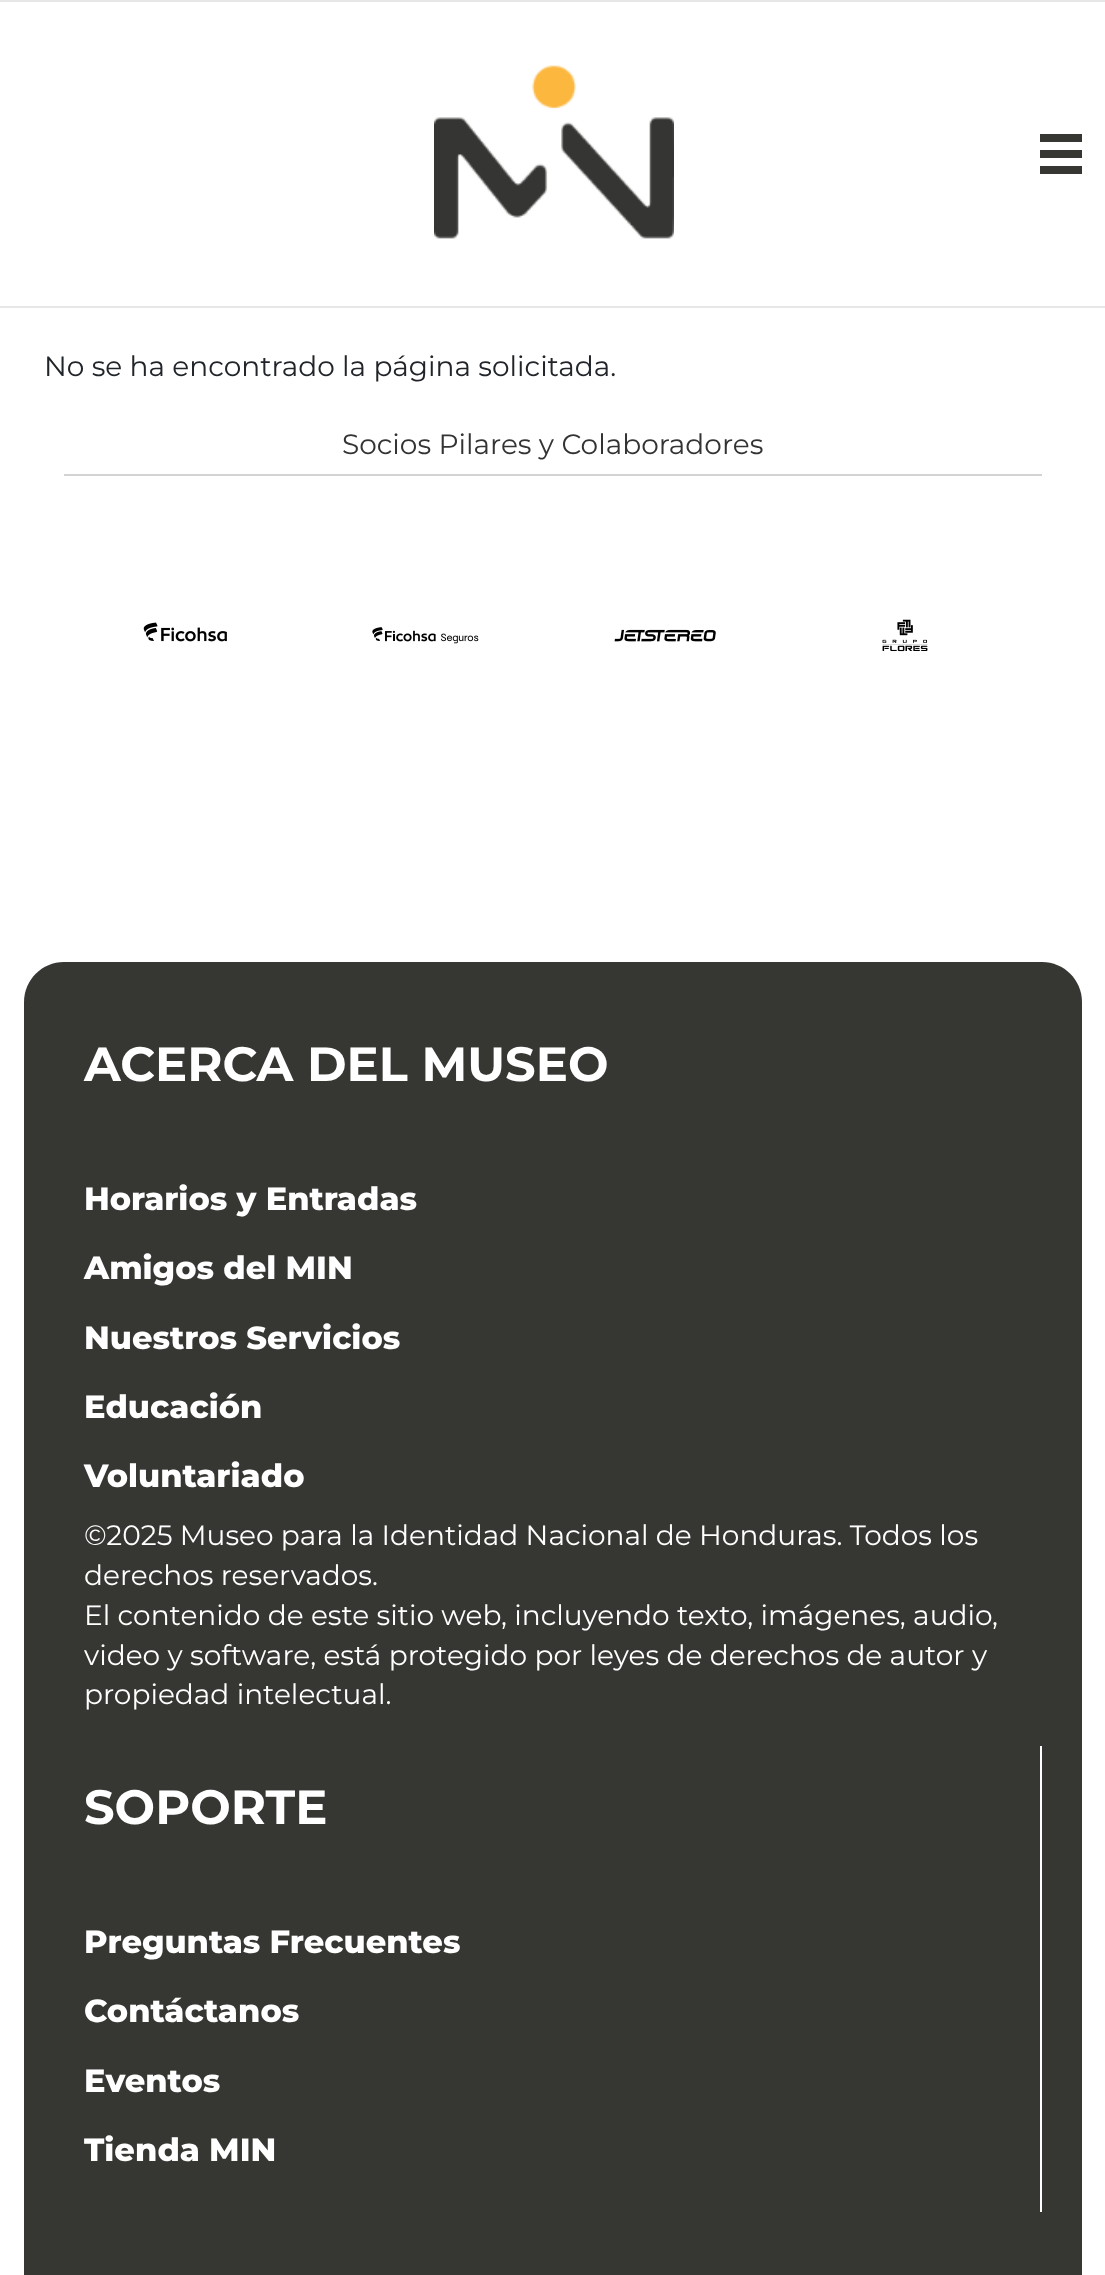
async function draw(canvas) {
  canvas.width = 1105
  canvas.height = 2275
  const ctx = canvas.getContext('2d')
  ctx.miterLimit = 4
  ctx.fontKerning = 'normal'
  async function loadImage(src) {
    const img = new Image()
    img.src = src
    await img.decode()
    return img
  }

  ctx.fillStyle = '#fff'
  ctx.fillRect(0, 0, 1105, 2275)
  ctx.fillStyle = '#e7e7e7'
  ctx.fillRect(0, 0, 1105, 2)
  ctx.fillRect(0, 306, 1105, 2)
  ctx.drawImage(await loadImage('image0.png'), 434, 65, 240, 174)
  ctx.fillStyle = '#363633'
  ctx.fillRect(1040, 134, 42, 8)
  ctx.fillRect(1040, 150, 42, 8)
  ctx.fillRect(1040, 166, 42, 8)
  ctx.font = '28px Montserrat'
  ctx.fillStyle = '#212529'
  ctx.fillText('No se ha encontrado la página solicitada.', 44, 376)
  ctx.fillStyle = '#d3d3d3'
  ctx.fillRect(64, 474, 978, 2)
  ctx.fillStyle = '#333'
  ctx.fillText('Socios Pilares y Colaboradores', 342, 454)
  ctx.drawImage(await loadImage('image1.png'), 143, 622, 84, 20)
  ctx.drawImage(await loadImage('image2.png'), 372, 627, 107, 17)
  ctx.drawImage(await loadImage('image3.png'), 614, 629, 102, 13)
  ctx.drawImage(await loadImage('image4.png'), 882, 619, 46, 33)
  ctx.fillStyle = '#363633'
  ctx.beginPath()
  ctx.moveTo(64, 962)
  ctx.lineTo(1042, 962)
  ctx.bezierCurveTo(1064, 962, 1082, 980, 1082, 1002)
  ctx.lineTo(1082, 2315)
  ctx.lineTo(24, 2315)
  ctx.lineTo(24, 1002)
  ctx.bezierCurveTo(24, 980, 42, 962, 64, 962)
  ctx.closePath()
  ctx.fill()
  ctx.font = 'bold 48px Montserrat'
  ctx.fillStyle = '#fff'
  ctx.fillText('ACERCA DEL MUSEO', 84, 1081)
  ctx.font = '800 32px Montserrat'
  ctx.fillText('Horarios y Entradas', 84, 1210)
  ctx.fillText('Amigos del MIN', 84, 1279)
  ctx.fillText('Nuestros Servicios', 84, 1349)
  ctx.fillText('Educación', 84, 1418)
  ctx.fillText('Voluntariado', 84, 1487)
  ctx.font = '28px Montserrat'
  ctx.fillText('©2025 Museo para la Identidad Nacional de Honduras. Todos los', 84, 1545)
  ctx.fillText('derechos reservados.', 84, 1585)
  ctx.fillText('El contenido de este sitio web, incluyendo texto, imágenes, audio,', 84, 1625)
  ctx.fillText('video y software, está protegido por leyes de derechos de autor y', 84, 1665)
  ctx.fillText('propiedad intelectual.', 84, 1704)
  ctx.fillRect(1040, 1746, 2, 466)
  ctx.font = 'bold 48px Montserrat'
  ctx.fillText('SOPORTE', 84, 1824)
  ctx.font = '800 32px Montserrat'
  ctx.fillText('Preguntas Frecuentes', 84, 1953)
  ctx.fillText('Contáctanos', 84, 2022)
  ctx.fillText('Eventos', 84, 2092)
  ctx.fillText('Tienda MIN', 84, 2161)
}

draw(document.querySelector('canvas'))
